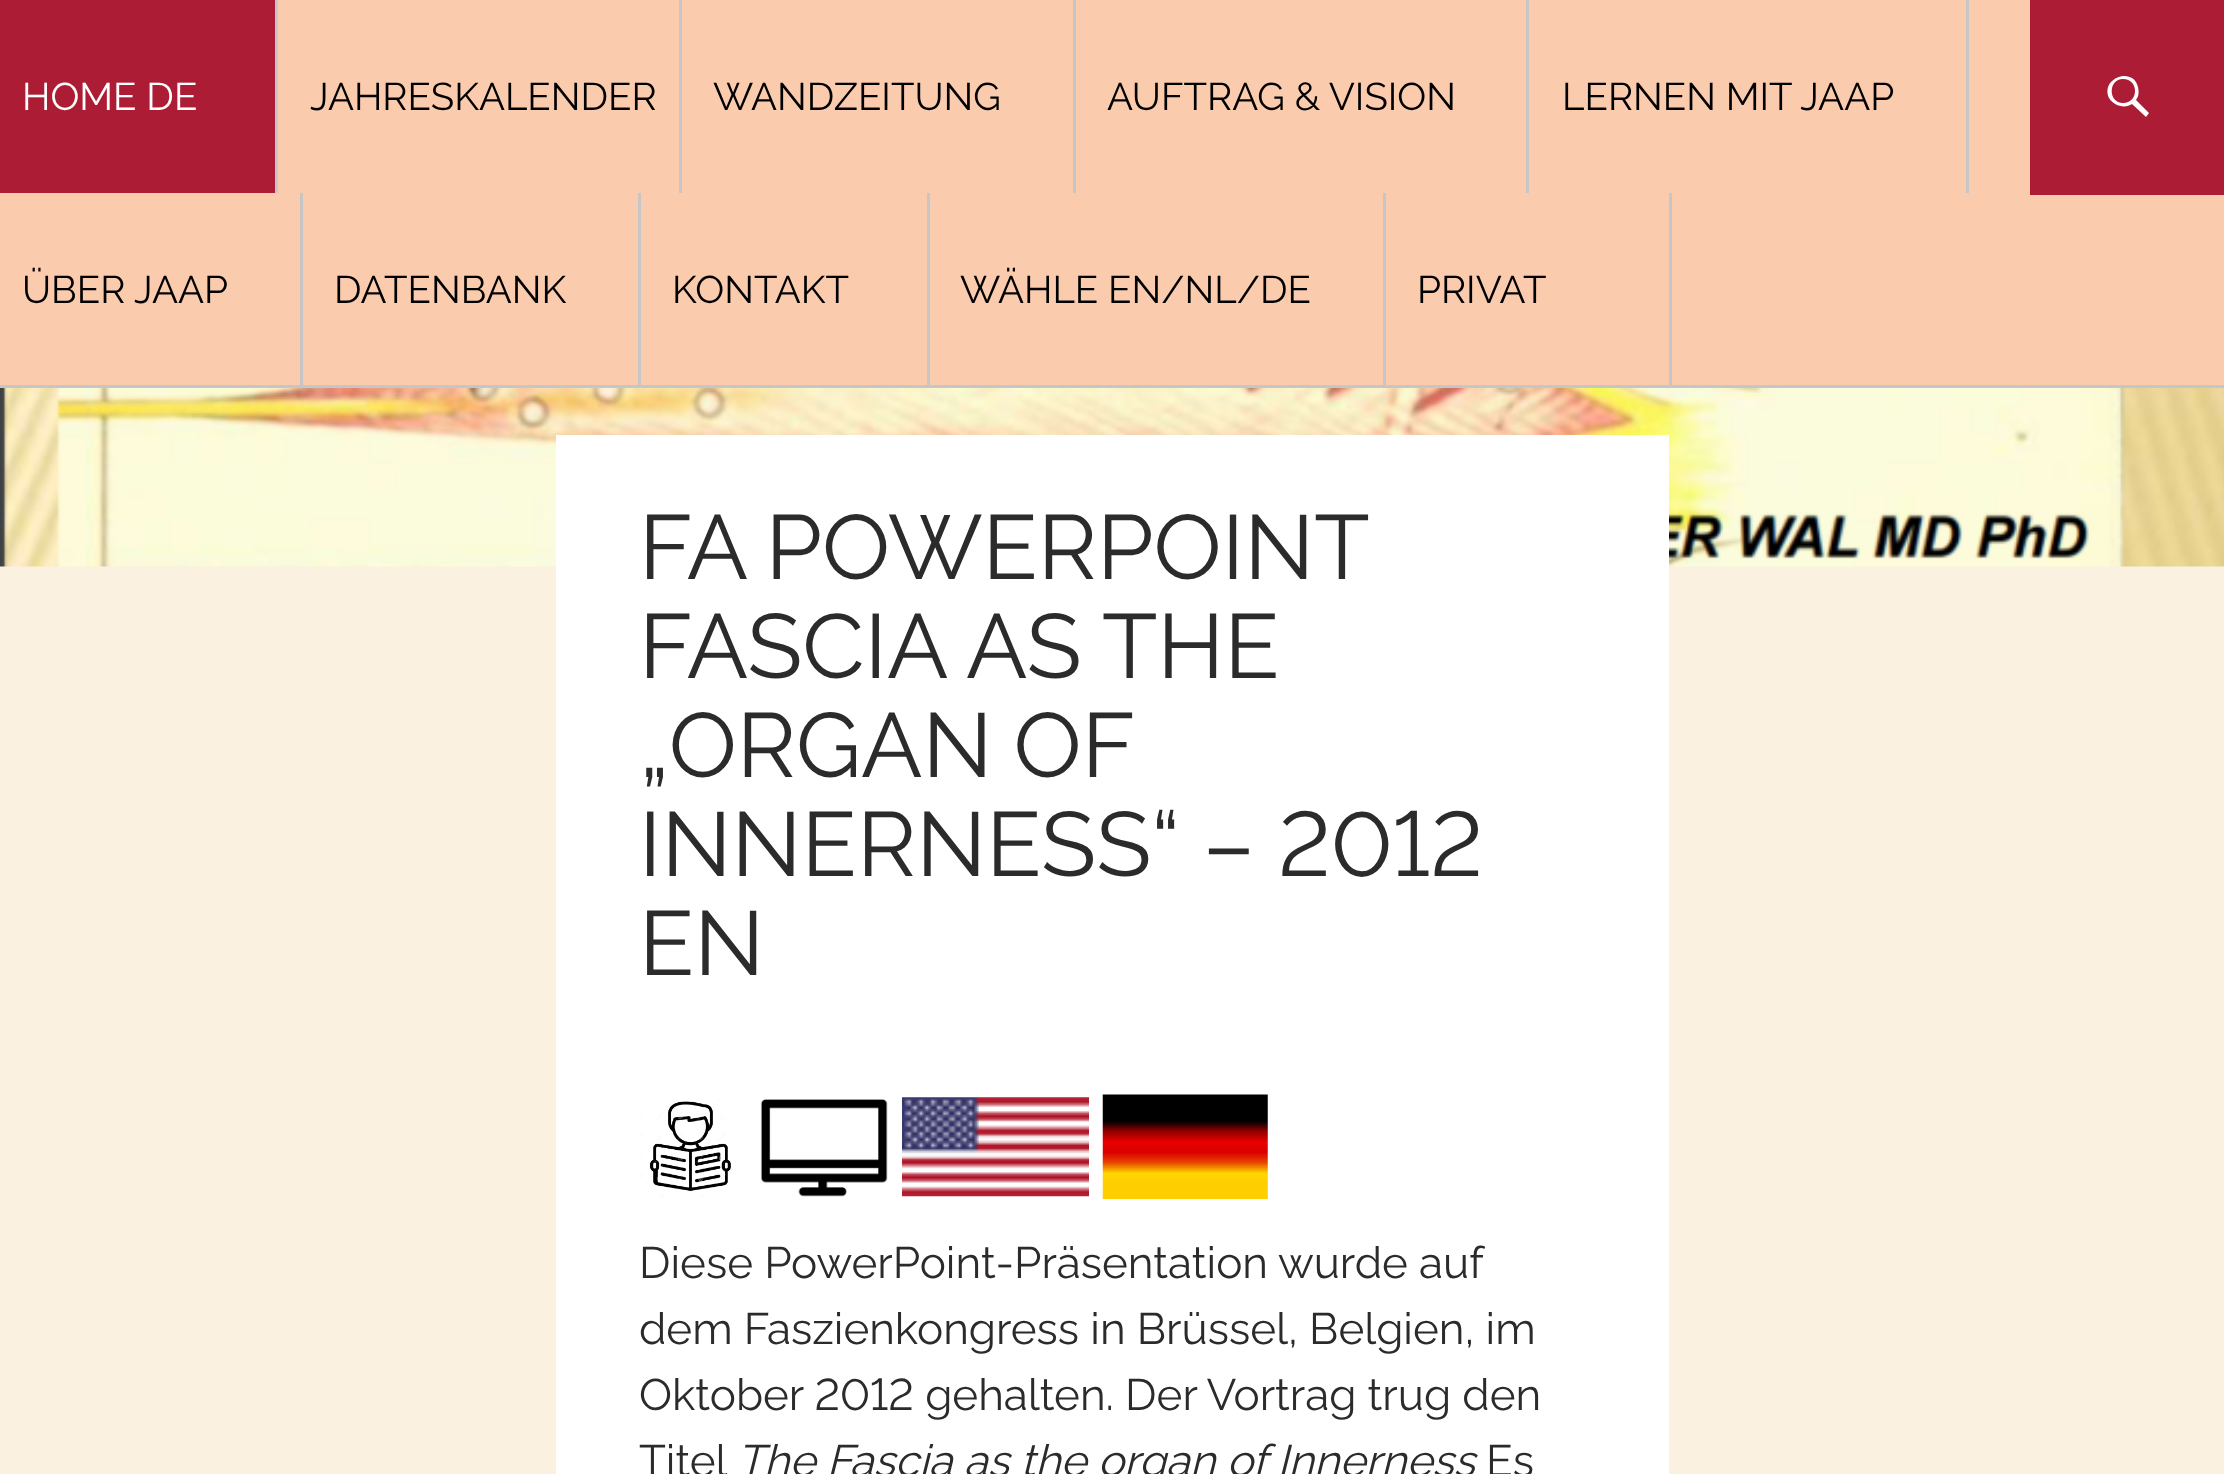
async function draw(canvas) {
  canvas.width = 2224
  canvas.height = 1474
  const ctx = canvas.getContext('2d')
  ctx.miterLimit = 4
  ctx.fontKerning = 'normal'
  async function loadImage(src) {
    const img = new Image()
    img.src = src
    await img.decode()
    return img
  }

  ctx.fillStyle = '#faf1e0'
  ctx.fillRect(0, 0, 2224, 1474)
  ctx.fillStyle = '#fbcbae'
  ctx.fillRect(0, 0, 2224, 385)
  ctx.fillStyle = '#c6c6c6'
  ctx.fillRect(0, 385, 2224, 3)
  ctx.fillRect(275, 0, 3, 193)
  ctx.fillStyle = '#ac1c35'
  ctx.fillRect(0, 0, 275, 193)
  ctx.font = '38.5px Raleway'
  ctx.fillStyle = '#fff'
  ctx.fillText('HOME DE', 22, 110)
  ctx.fillStyle = '#c6c6c6'
  ctx.fillRect(679, 0, 3, 193)
  ctx.fillStyle = '#000'
  ctx.fillText('JAHRESKALENDER', 310, 110)
  ctx.fillStyle = '#c6c6c6'
  ctx.fillRect(1073, 0, 3, 193)
  ctx.fillStyle = '#000'
  ctx.fillText('WANDZEITUNG', 713, 110)
  ctx.fillStyle = '#c6c6c6'
  ctx.fillRect(1526, 0, 3, 193)
  ctx.fillStyle = '#000'
  ctx.fillText('AUFTRAG & VISION', 1107, 110)
  ctx.fillStyle = '#c6c6c6'
  ctx.fillRect(1966, 0, 3, 193)
  ctx.fillStyle = '#000'
  ctx.fillText('LERNEN MIT JAAP', 1562, 110)
  ctx.fillStyle = '#c6c6c6'
  ctx.fillRect(300, 193, 3, 192)
  ctx.fillStyle = '#000'
  ctx.fillText('ÜBER JAAP', 22, 303)
  ctx.fillStyle = '#c6c6c6'
  ctx.fillRect(638, 193, 3, 192)
  ctx.fillStyle = '#000'
  ctx.fillText('DATENBANK', 334, 303)
  ctx.fillStyle = '#c6c6c6'
  ctx.fillRect(927, 193, 3, 192)
  ctx.fillStyle = '#000'
  ctx.fillText('KONTAKT', 672, 303)
  ctx.fillStyle = '#c6c6c6'
  ctx.fillRect(1383, 193, 3, 192)
  ctx.fillStyle = '#000'
  ctx.fillText('WÄHLE EN/NL/DE', 960, 303)
  ctx.fillStyle = '#c6c6c6'
  ctx.fillRect(1669, 193, 3, 192)
  ctx.fillStyle = '#000'
  ctx.fillText('PRIVAT', 1417, 303)
  ctx.fillStyle = '#ac1c35'
  ctx.fillRect(2030, 0, 194, 195)
  ctx.fillStyle = '#fff'
  ctx.beginPath()
  ctx.moveTo(2149, 113)
  ctx.lineTo(2146, 117)
  ctx.lineTo(2132, 104)
  ctx.bezierCurveTo(2125, 109, 2114, 106, 2109, 98)
  ctx.bezierCurveTo(2100, 78, 2133, 66, 2138, 87)
  ctx.bezierCurveTo(2139, 92, 2139, 96, 2136, 100)
  ctx.closePath()
  ctx.moveTo(2123, 103)
  ctx.bezierCurveTo(2139, 103, 2139, 79, 2123, 79)
  ctx.bezierCurveTo(2108, 79, 2108, 103, 2123, 103)
  ctx.closePath()
  ctx.fill()
  ctx.drawImage(await loadImage('image0.png'), 0, 388, 2224, 179)
  ctx.fillRect(556, 435, 1113, 627)
  ctx.wordSpacing = '-3px'
  ctx.font = '90.75px Raleway'
  ctx.fillStyle = '#2b2b2b'
  ctx.fillText('FA POWERPOINT', 639, 579)
  ctx.wordSpacing = '0px'
  ctx.fillText('FASCIA AS THE', 639, 678)
  ctx.wordSpacing = '-2px'
  ctx.fillText('„ORGAN OF', 639, 777)
  ctx.wordSpacing = '0px'
  ctx.font = '90.75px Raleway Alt'
  ctx.fillText('INNERNESS“ – 2012', 639, 876)
  ctx.font = '90.75px Raleway'
  ctx.fillText('EN', 639, 975)
  ctx.fillStyle = '#fff'
  ctx.fillRect(556, 1062, 1113, 412)
  ctx.drawImage(await loadImage('image1.png'), 640, 1098, 91, 100)
  ctx.drawImage(await loadImage('image2.png'), 760, 1099, 128, 98)
  ctx.drawImage(await loadImage('image3.png'), 902, 1097, 187, 100)
  ctx.drawImage(await loadImage('image4.png'), 1102, 1094, 166, 105)
  ctx.font = '44px Raleway'
  ctx.fillStyle = '#2b2b2b'
  ctx.fillText('Diese PowerPoint-Präsentation wurde auf', 639, 1278)
  ctx.fillText('dem Faszienkongress in Brüssel, Belgien, im', 639, 1344)
  ctx.font = '44px Raleway Alt'
  ctx.fillText('Oktober 2012 gehalten. Der Vortrag trug den', 639, 1410)
  ctx.font = '44px Raleway'
  ctx.fillText('Titel', 639, 1476)
  ctx.font = 'italic 44px Raleway'
  ctx.fillText('The Fascia as the organ of Innerness', 737, 1476)
  ctx.font = '44px Raleway'
  ctx.fillText('Es', 1486, 1476)
}

draw(document.querySelector('canvas'))
